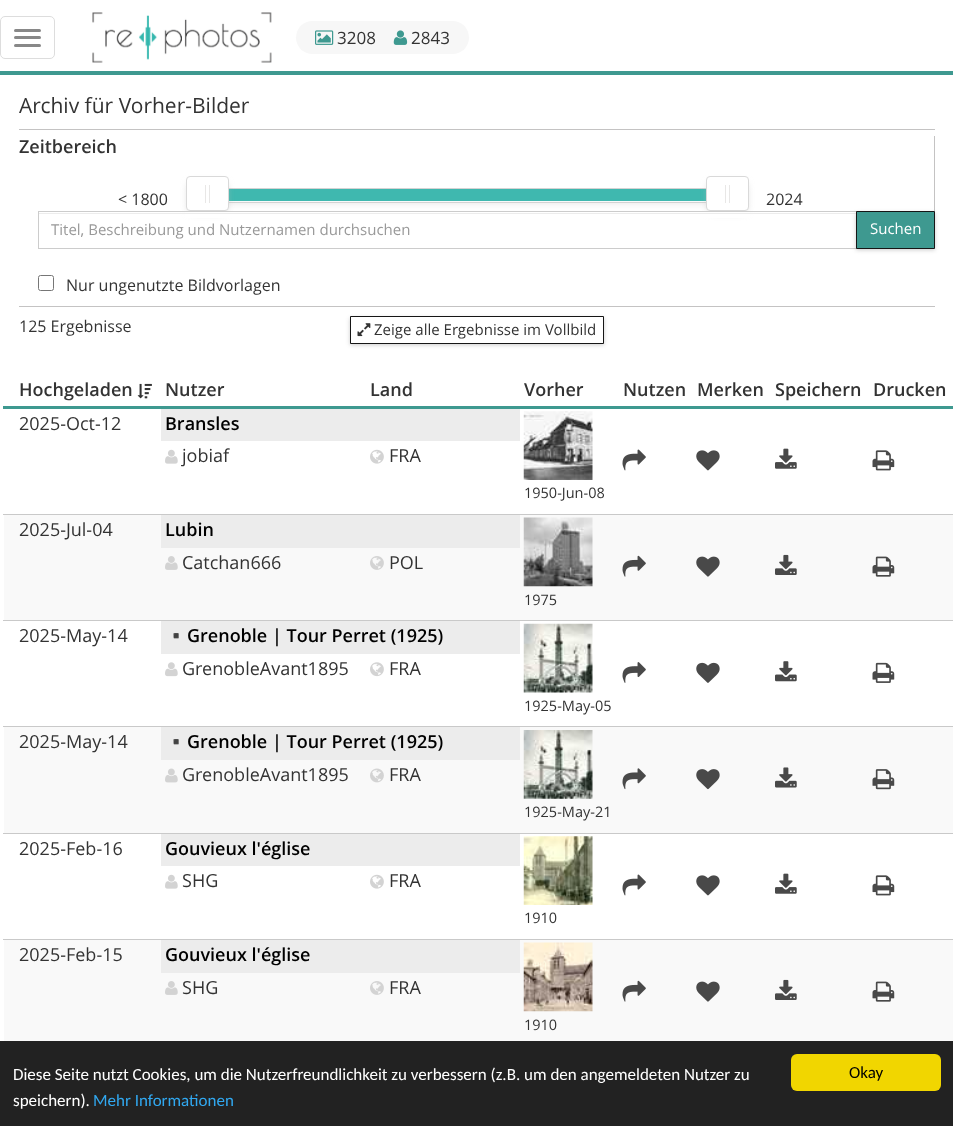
async function draw(canvas) {
  canvas.width = 953
  canvas.height = 1126
  const ctx = canvas.getContext('2d')
  ctx.miterLimit = 4
  ctx.fontKerning = 'normal'
  async function loadImage(src) {
    const img = new Image()
    img.src = src
    await img.decode()
    return img
  }

  ctx.fillStyle = '#fff'
  ctx.fillRect(0, 0, 953, 1126)
  ctx.fillStyle = '#3e9990'
  ctx.fillRect(0, 71, 953, 4)
  ctx.beginPath()
  ctx.roundRect(0.5, 16.5, 54, 42, 4.5)
  ctx.strokeStyle = '#ddd'
  ctx.stroke()
  ctx.fillStyle = '#888'
  ctx.beginPath()
  ctx.roundRect(14, 29, 27, 3, 1.5)
  ctx.fill()
  ctx.beginPath()
  ctx.roundRect(14, 36, 27, 3, 1.5)
  ctx.fill()
  ctx.beginPath()
  ctx.roundRect(14, 44, 27, 3, 1.5)
  ctx.fill()
  ctx.drawImage(await loadImage('image0.png'), 92, 12, 180, 51)
  ctx.fillStyle = '#f7f7f7'
  ctx.beginPath()
  ctx.roundRect(296, 21, 173, 33, 16.5)
  ctx.fill()
  ctx.drawImage(await loadImage('image1.png'), 315, 30, 19, 15)
  ctx.font = '17px Open Sans'
  ctx.fillStyle = '#333'
  ctx.fillText('3208', 337, 44)
  ctx.drawImage(await loadImage('image2.png'), 393, 30, 15, 15)
  ctx.fillText('2843', 411, 44)
  ctx.font = '21px Open Sans'
  ctx.fillText('Archiv für Vorher-Bilder', 19, 113)
  ctx.fillStyle = '#c4c3c3'
  ctx.fillRect(19, 129, 916, 1)
  ctx.fillRect(19, 306, 916, 1)
  ctx.fillRect(934, 136, 1, 75)
  ctx.font = '600 18px Open Sans'
  ctx.fillStyle = '#333'
  ctx.fillText('Zeitbereich', 19, 153)
  ctx.font = '16px Open Sans'
  ctx.fillText('< 1800', 118, 205)
  ctx.fillStyle = '#bbb'
  ctx.filter = 'blur(4px)'
  ctx.beginPath()
  ctx.rect(213, 198, 510, 3)
  ctx.fill()
  ctx.filter = 'none'
  ctx.fillStyle = '#fafafa'
  ctx.fillRect(229, 201, 477, 1)
  ctx.strokeStyle = '#d3d3d3'
  ctx.strokeRect(206.5, 188.5, 522, 14)
  ctx.fillStyle = '#3fb8af'
  ctx.fillRect(229, 189, 477, 12)
  ctx.fillStyle = '#bbb'
  ctx.filter = 'blur(4px)'
  ctx.beginPath()
  ctx.rect(190, 184, 35, 27)
  ctx.fill()
  ctx.filter = 'none'
  ctx.fillStyle = '#fff'
  ctx.beginPath()
  ctx.roundRect(186.5, 176.5, 42, 34, 3.5)
  ctx.fill()
  ctx.strokeStyle = '#d9d9d9'
  ctx.stroke()
  ctx.fillStyle = '#e8e7e6'
  ctx.fillRect(205, 185, 1, 18)
  ctx.fillRect(209, 185, 1, 18)
  ctx.fillStyle = '#bbb'
  ctx.filter = 'blur(4px)'
  ctx.beginPath()
  ctx.rect(710, 184, 35, 27)
  ctx.fill()
  ctx.filter = 'none'
  ctx.fillStyle = '#fff'
  ctx.beginPath()
  ctx.roundRect(706.5, 176.5, 42, 34, 3.5)
  ctx.fill()
  ctx.stroke()
  ctx.fillStyle = '#e8e7e6'
  ctx.fillRect(725, 185, 1, 18)
  ctx.fillRect(729, 185, 1, 18)
  ctx.fillStyle = '#333'
  ctx.fillText('2024', 766, 205)
  ctx.fillStyle = '#fff'
  ctx.fillRect(185, 212, 565, 6)
  ctx.fillStyle = '#ececec'
  ctx.fillRect(39, 213, 817, 1)
  ctx.strokeStyle = '#ccc'
  ctx.strokeRect(38.5, 211.5, 819, 37)
  ctx.font = '15px Open Sans'
  ctx.fillStyle = '#999'
  ctx.fillText('Titel, Beschreibung und Nutzernamen durchsuchen', 51, 235)
  ctx.fillStyle = '#00000033'
  ctx.filter = 'blur(2px)'
  ctx.beginPath()
  ctx.rect(856, 213, 79, 37)
  ctx.fill()
  ctx.filter = 'none'
  ctx.fillStyle = '#3e9990'
  ctx.beginPath()
  ctx.rect(856.5, 211.5, 78, 37)
  ctx.fill()
  ctx.strokeStyle = '#161616'
  ctx.stroke()
  ctx.fillStyle = '#fff'
  ctx.fillText('Suchen', 870, 234)
  ctx.beginPath()
  ctx.roundRect(38.5, 275.5, 15, 15, 2)
  ctx.strokeStyle = '#767676'
  ctx.stroke()
  ctx.font = '16px Open Sans'
  ctx.fillStyle = '#333'
  ctx.fillText('Nur ungenutzte Bildvorlagen', 66, 291)
  ctx.fillText('125 Ergebnisse', 19, 332)
  ctx.fillStyle = '#00000033'
  ctx.filter = 'blur(2px)'
  ctx.beginPath()
  ctx.rect(350, 318, 254, 27)
  ctx.fill()
  ctx.filter = 'none'
  ctx.fillStyle = '#fff'
  ctx.beginPath()
  ctx.rect(350.5, 316.5, 253, 27)
  ctx.fill()
  ctx.strokeStyle = '#161616'
  ctx.stroke()
  ctx.drawImage(await loadImage('image3.png'), 357, 323, 14, 14)
  ctx.font = '15px Open Sans'
  ctx.fillStyle = '#333'
  ctx.fillText('Zeige alle Ergebnisse im Vollbild', 374, 335)
  ctx.fillStyle = '#3e9990'
  ctx.fillRect(3, 406, 950, 3)
  ctx.font = '600 18px Open Sans'
  ctx.fillStyle = '#333'
  ctx.fillText('Hochgeladen', 19, 396)
  ctx.drawImage(await loadImage('image4.png'), 137, 383, 15, 16)
  ctx.fillText('Nutzer', 165, 396)
  ctx.fillText('Land', 370, 396)
  ctx.fillText('Vorher', 524, 396)
  ctx.fillText('Nutzen', 623, 396)
  ctx.fillText('Merken', 697, 396)
  ctx.fillText('Speichern', 775, 396)
  ctx.fillText('Drucken', 873, 396)
  ctx.font = '18px Open Sans'
  ctx.fillText('2025-Oct-12', 19, 430)
  ctx.fillStyle = '#ececec'
  ctx.fillRect(161, 409, 359, 32)
  ctx.font = '600 18px Open Sans'
  ctx.fillStyle = '#000'
  ctx.fillText('Bransles', 165, 430)
  ctx.drawImage(await loadImage('image5.png'), 622, 449, 24, 22)
  ctx.drawImage(await loadImage('image6.png'), 696, 450, 24, 21)
  ctx.drawImage(await loadImage('image7.png'), 775, 448, 22, 21)
  ctx.drawImage(await loadImage('image8.png'), 872, 450, 23, 21)
  ctx.drawImage(await loadImage('image9.png'), 523, 411, 70, 69)
  ctx.font = '14.5px Open Sans'
  ctx.fillStyle = '#333'
  ctx.fillText('1950-Jun-08', 524, 498)
  ctx.drawImage(await loadImage('image10.png'), 165, 449, 13, 15)
  ctx.font = '18px Open Sans'
  ctx.fillText('jobiaf', 182, 462)
  ctx.drawImage(await loadImage('image11.png'), 370, 449, 14, 15)
  ctx.fillText('FRA', 389, 462)
  ctx.fillStyle = '#f9f9f9'
  ctx.fillRect(4, 515, 949, 105)
  ctx.fillStyle = '#c9c9c9'
  ctx.fillRect(3, 514, 950, 1)
  ctx.fillStyle = '#333'
  ctx.fillText('2025-Jul-04', 19, 536)
  ctx.fillStyle = '#ececec'
  ctx.fillRect(161, 515, 359, 33)
  ctx.font = '600 18px Open Sans'
  ctx.fillStyle = '#000'
  ctx.fillText('Lubin', 165, 536)
  ctx.drawImage(await loadImage('image12.png'), 622, 555, 24, 22)
  ctx.drawImage(await loadImage('image13.png'), 696, 556, 24, 21)
  ctx.drawImage(await loadImage('image14.png'), 775, 554, 22, 21)
  ctx.drawImage(await loadImage('image15.png'), 872, 556, 23, 21)
  ctx.drawImage(await loadImage('image16.png'), 523, 517, 70, 70)
  ctx.font = '14.5px Open Sans'
  ctx.fillStyle = '#333'
  ctx.fillText('1975', 524, 605)
  ctx.drawImage(await loadImage('image17.png'), 165, 556, 13, 14)
  ctx.font = '18px Open Sans'
  ctx.fillText('Catchan666', 182, 569)
  ctx.drawImage(await loadImage('image18.png'), 370, 556, 14, 14)
  ctx.fillText('POL', 389, 569)
  ctx.fillStyle = '#c9c9c9'
  ctx.fillRect(3, 620, 950, 1)
  ctx.fillStyle = '#333'
  ctx.fillText('2025-May-14', 19, 642)
  ctx.fillStyle = '#ececec'
  ctx.fillRect(161, 621, 359, 33)
  ctx.font = 'bold 18px Noto Color Emoji'
  ctx.fillStyle = '#000'
  ctx.fillText('▪️', 165, 642)
  ctx.font = '600 18px Open Sans'
  ctx.fillText('Grenoble | Tour Perret (1925)', 187, 642)
  ctx.drawImage(await loadImage('image19.png'), 622, 662, 24, 21)
  ctx.drawImage(await loadImage('image20.png'), 696, 662, 24, 21)
  ctx.drawImage(await loadImage('image21.png'), 775, 661, 22, 21)
  ctx.drawImage(await loadImage('image22.png'), 872, 662, 23, 21)
  ctx.drawImage(await loadImage('image23.png'), 523, 623, 70, 70)
  ctx.font = '14.5px Open Sans'
  ctx.fillStyle = '#333'
  ctx.fillText('1925-May-05', 524, 711)
  ctx.drawImage(await loadImage('image24.png'), 165, 662, 13, 15)
  ctx.font = '18px Open Sans'
  ctx.fillText('GrenobleAvant1895', 182, 675)
  ctx.drawImage(await loadImage('image25.png'), 370, 662, 14, 15)
  ctx.fillText('FRA', 389, 675)
  ctx.fillStyle = '#f9f9f9'
  ctx.fillRect(4, 727, 949, 106)
  ctx.fillStyle = '#c9c9c9'
  ctx.fillRect(3, 726, 950, 1)
  ctx.fillStyle = '#333'
  ctx.fillText('2025-May-14', 19, 748)
  ctx.fillStyle = '#ececec'
  ctx.fillRect(161, 727, 359, 33)
  ctx.font = 'bold 18px Noto Color Emoji'
  ctx.fillStyle = '#000'
  ctx.fillText('▪️', 165, 748)
  ctx.font = '600 18px Open Sans'
  ctx.fillText('Grenoble | Tour Perret (1925)', 187, 748)
  ctx.drawImage(await loadImage('image26.png'), 622, 768, 24, 22)
  ctx.drawImage(await loadImage('image27.png'), 696, 769, 24, 21)
  ctx.drawImage(await loadImage('image28.png'), 775, 767, 22, 21)
  ctx.drawImage(await loadImage('image29.png'), 872, 769, 23, 21)
  ctx.drawImage(await loadImage('image30.png'), 523, 730, 70, 69)
  ctx.font = '14.5px Open Sans'
  ctx.fillStyle = '#333'
  ctx.fillText('1925-May-21', 524, 817)
  ctx.drawImage(await loadImage('image31.png'), 165, 768, 13, 15)
  ctx.font = '18px Open Sans'
  ctx.fillText('GrenobleAvant1895', 182, 781)
  ctx.drawImage(await loadImage('image32.png'), 370, 768, 14, 15)
  ctx.fillText('FRA', 389, 781)
  ctx.fillStyle = '#c9c9c9'
  ctx.fillRect(3, 833, 950, 1)
  ctx.fillStyle = '#333'
  ctx.fillText('2025-Feb-16', 19, 855)
  ctx.fillStyle = '#ececec'
  ctx.fillRect(161, 834, 359, 32)
  ctx.font = '600 18px Open Sans'
  ctx.fillStyle = '#000'
  ctx.fillText('Gouvieux l\'église', 165, 855)
  ctx.drawImage(await loadImage('image5.png'), 622, 874, 24, 22)
  ctx.drawImage(await loadImage('image6.png'), 696, 875, 24, 21)
  ctx.drawImage(await loadImage('image7.png'), 775, 873, 22, 21)
  ctx.drawImage(await loadImage('image8.png'), 872, 875, 23, 21)
  ctx.drawImage(await loadImage('image33.png'), 523, 836, 70, 69)
  ctx.font = '14.5px Open Sans'
  ctx.fillStyle = '#333'
  ctx.fillText('1910', 524, 923)
  ctx.drawImage(await loadImage('image10.png'), 165, 874, 13, 15)
  ctx.font = '18px Open Sans'
  ctx.fillText('SHG', 182, 887)
  ctx.drawImage(await loadImage('image11.png'), 370, 874, 14, 15)
  ctx.fillText('FRA', 389, 887)
  ctx.fillStyle = '#f9f9f9'
  ctx.fillRect(4, 940, 949, 101)
  ctx.fillStyle = '#c9c9c9'
  ctx.fillRect(3, 939, 950, 1)
  ctx.fillStyle = '#333'
  ctx.fillText('2025-Feb-15', 19, 961)
  ctx.fillStyle = '#ececec'
  ctx.fillRect(161, 940, 359, 33)
  ctx.font = '600 18px Open Sans'
  ctx.fillStyle = '#000'
  ctx.fillText('Gouvieux l\'église', 165, 961)
  ctx.drawImage(await loadImage('image12.png'), 622, 980, 24, 22)
  ctx.drawImage(await loadImage('image13.png'), 696, 981, 24, 21)
  ctx.drawImage(await loadImage('image14.png'), 775, 979, 22, 21)
  ctx.drawImage(await loadImage('image15.png'), 872, 981, 23, 21)
  ctx.drawImage(await loadImage('image34.png'), 523, 942, 70, 70)
  ctx.font = '14.5px Open Sans'
  ctx.fillStyle = '#333'
  ctx.fillText('1910', 524, 1030)
  ctx.drawImage(await loadImage('image17.png'), 165, 981, 13, 14)
  ctx.font = '18px Open Sans'
  ctx.fillText('SHG', 182, 994)
  ctx.drawImage(await loadImage('image18.png'), 370, 981, 14, 14)
  ctx.fillText('FRA', 389, 994)
  ctx.fillStyle = '#222'
  ctx.fillRect(0, 1041, 953, 85)
  ctx.font = '17px Carlito'
  ctx.fillStyle = '#fff'
  ctx.fillText('Diese Seite nutzt Cookies, um die Nutzerfreundlichkeit zu verbessern (z.B. um den angemeldeten Nutzer zu', 13, 1080)
  ctx.fillText('speichern).', 13, 1106)
  ctx.fillStyle = '#31a8f0'
  ctx.fillText('Mehr Informationen', 93, 1106)
  ctx.fillStyle = '#f1d600'
  ctx.beginPath()
  ctx.roundRect(791, 1054, 150, 37, 6)
  ctx.fill()
  ctx.fillStyle = '#000'
  ctx.fillText('Okay', 849, 1078)
}

draw(document.querySelector('canvas'))
